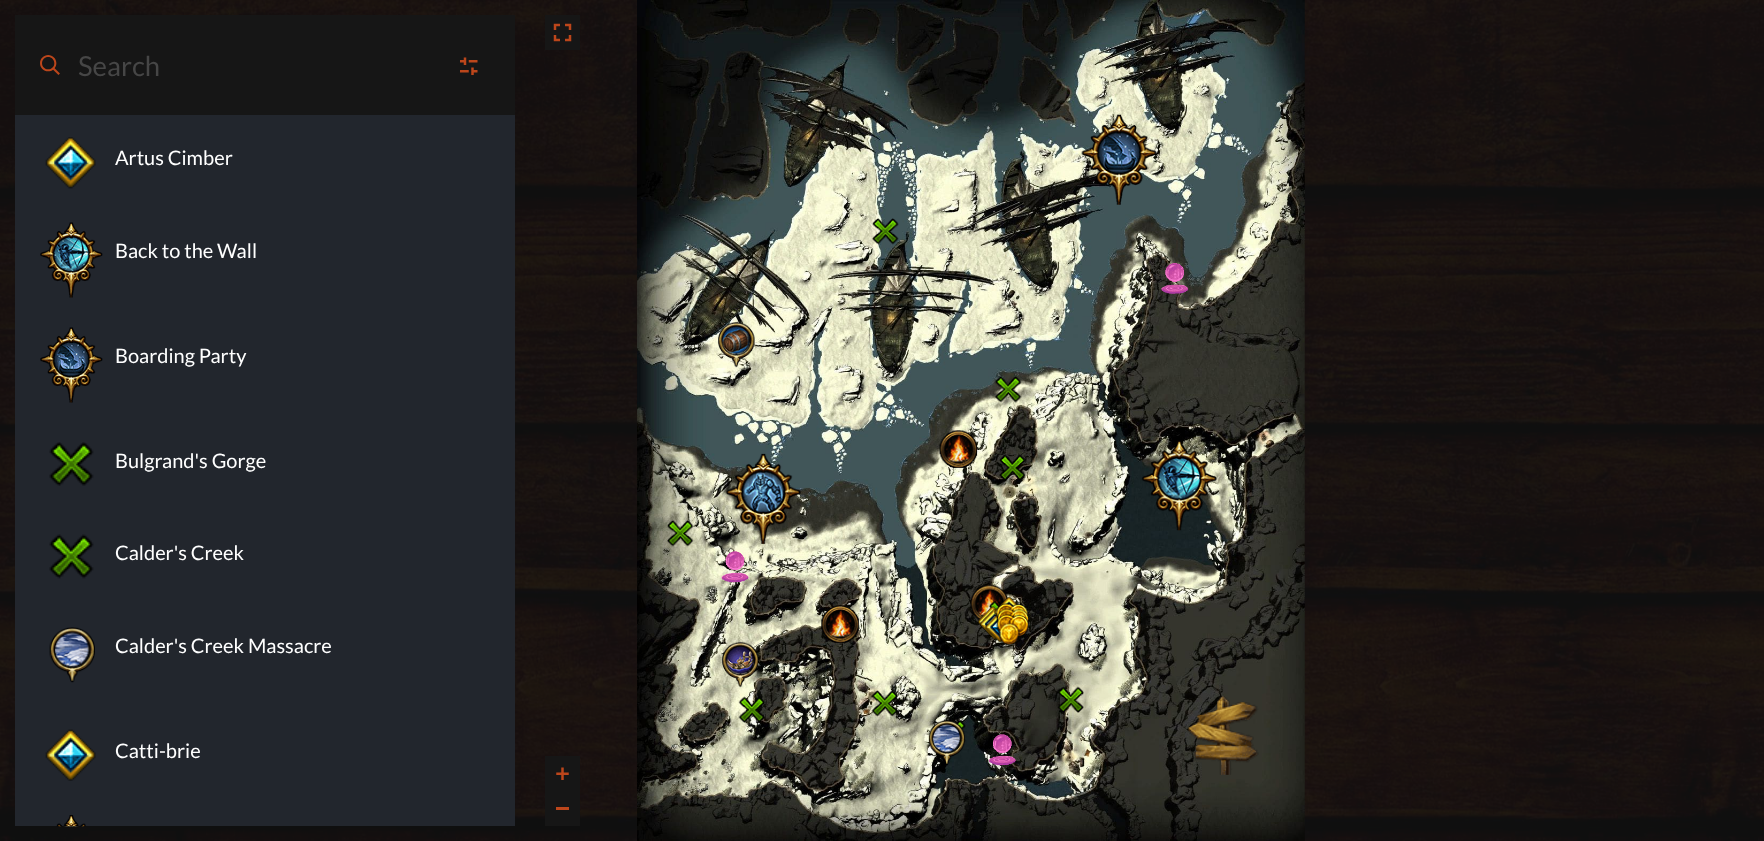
async function draw(canvas) {
  canvas.width = 1764
  canvas.height = 841
  const ctx = canvas.getContext('2d')
  ctx.miterLimit = 4
  ctx.fontKerning = 'normal'
  async function loadImage(src) {
    const img = new Image()
    img.src = src
    await img.decode()
    return img
  }

  ctx.fillStyle = '#fff'
  ctx.fillRect(0, 0, 1764, 841)
  ctx.drawImage(await loadImage('image0.png'), 0, 0, 1764, 841)
  ctx.fillStyle = '#161616'
  ctx.fillRect(15, 15, 500, 100)
  ctx.drawImage(await loadImage('image1.png'), 40, 55, 20, 20)
  ctx.font = '27.5px Lato'
  ctx.fillStyle = '#464646'
  ctx.fillText('Search', 78, 76)
  ctx.drawImage(await loadImage('image2.png'), 460, 57, 18, 18)
  ctx.fillStyle = '#22262d'
  ctx.fillRect(15, 115, 500, 711)
  ctx.drawImage(await loadImage('image3.png'), 45, 137, 51, 52)
  ctx.font = '20px Lato'
  ctx.fillStyle = '#fff'
  ctx.fillText('Artus Cimber', 115, 165)
  ctx.drawImage(await loadImage('image4.png'), 40, 222, 63, 76)
  ctx.fillText('Back to the Wall', 115, 258)
  ctx.drawImage(await loadImage('image5.png'), 40, 327, 63, 76)
  ctx.fillText('Boarding Party', 115, 363)
  ctx.drawImage(await loadImage('image6.png'), 49, 442, 45, 44)
  ctx.fillText('Bulgrand\'s Gorge', 115, 468)
  ctx.drawImage(await loadImage('image7.png'), 49, 534, 45, 45)
  ctx.fillText('Calder\'s Creek', 115, 560)
  ctx.drawImage(await loadImage('image8.png'), 49, 627, 46, 56)
  ctx.fillText('Calder\'s Creek Massacre', 115, 653)
  ctx.drawImage(await loadImage('image9.png'), 45, 729, 51, 52)
  ctx.fillText('Catti-brie', 115, 758)
  ctx.drawImage(await loadImage('image10.png'), 56, 815, 30, 12)
  ctx.fillStyle = '#161616'
  ctx.fillRect(545, 15, 35, 35)
  ctx.drawImage(await loadImage('image11.png'), 553, 23, 19, 19)
  ctx.drawImage(await loadImage('image12.png'), 637, 0, 668, 841)
  ctx.drawImage(await loadImage('image13.png'), 1081, 114, 76, 91)
  ctx.drawImage(await loadImage('image14.png'), 872, 218, 27, 27)
  ctx.drawImage(await loadImage('image15.png'), 1161, 263, 28, 31)
  ctx.drawImage(await loadImage('image16.png'), 718, 322, 37, 46)
  ctx.drawImage(await loadImage('image17.png'), 995, 376, 27, 27)
  ctx.drawImage(await loadImage('image18.png'), 725, 453, 76, 91)
  ctx.drawImage(await loadImage('image19.png'), 939, 430, 39, 38)
  ctx.drawImage(await loadImage('image20.png'), 999, 454, 27, 26)
  ctx.drawImage(await loadImage('image22.png'), 1188, 503, 3, 3)
  ctx.drawImage(await loadImage('image21.png'), 1141, 441, 76, 90)
  ctx.drawImage(await loadImage('image23.png'), 667, 520, 27, 27)
  ctx.drawImage(await loadImage('image24.png'), 721, 551, 28, 32)
  ctx.drawImage(await loadImage('image25.png'), 970, 584, 39, 36)
  ctx.drawImage(await loadImage('image28.png'), 988, 600, 12, 10)
  ctx.drawImage(await loadImage('image30.png'), 978, 606, 19, 31)
  ctx.drawImage(await loadImage('image32.png'), 980, 608, 18, 32)
  ctx.drawImage(await loadImage('image34.png'), 985, 614, 18, 29)
  ctx.drawImage(await loadImage('image26.png'), 994, 596, 29, 22)
  ctx.drawImage(await loadImage('image27.png'), 821, 605, 38, 38)
  ctx.drawImage(await loadImage('image29.png'), 995, 602, 34, 30)
  ctx.drawImage(await loadImage('image31.png'), 996, 607, 33, 31)
  ctx.drawImage(await loadImage('image33.png'), 996, 613, 34, 33)
  ctx.drawImage(await loadImage('image35.png'), 722, 641, 37, 47)
  ctx.drawImage(await loadImage('image36.png'), 738, 696, 27, 27)
  ctx.drawImage(await loadImage('image37.png'), 871, 690, 27, 27)
  ctx.drawImage(await loadImage('image38.png'), 939, 719, 27, 27)
  ctx.drawImage(await loadImage('image39.png'), 1057, 686, 27, 27)
  ctx.drawImage(await loadImage('image40.png'), 1187, 696, 72, 79)
  ctx.drawImage(await loadImage('image41.png'), 928, 720, 37, 45)
  ctx.drawImage(await loadImage('image42.png'), 989, 734, 27, 32)
  ctx.fillRect(545, 756, 35, 70)
  ctx.drawImage(await loadImage('image43.png'), 556, 767, 13, 13)
  ctx.fillStyle = '#bc461b'
  ctx.fillRect(556, 807, 13, 3)
}

draw(document.querySelector('canvas'))
